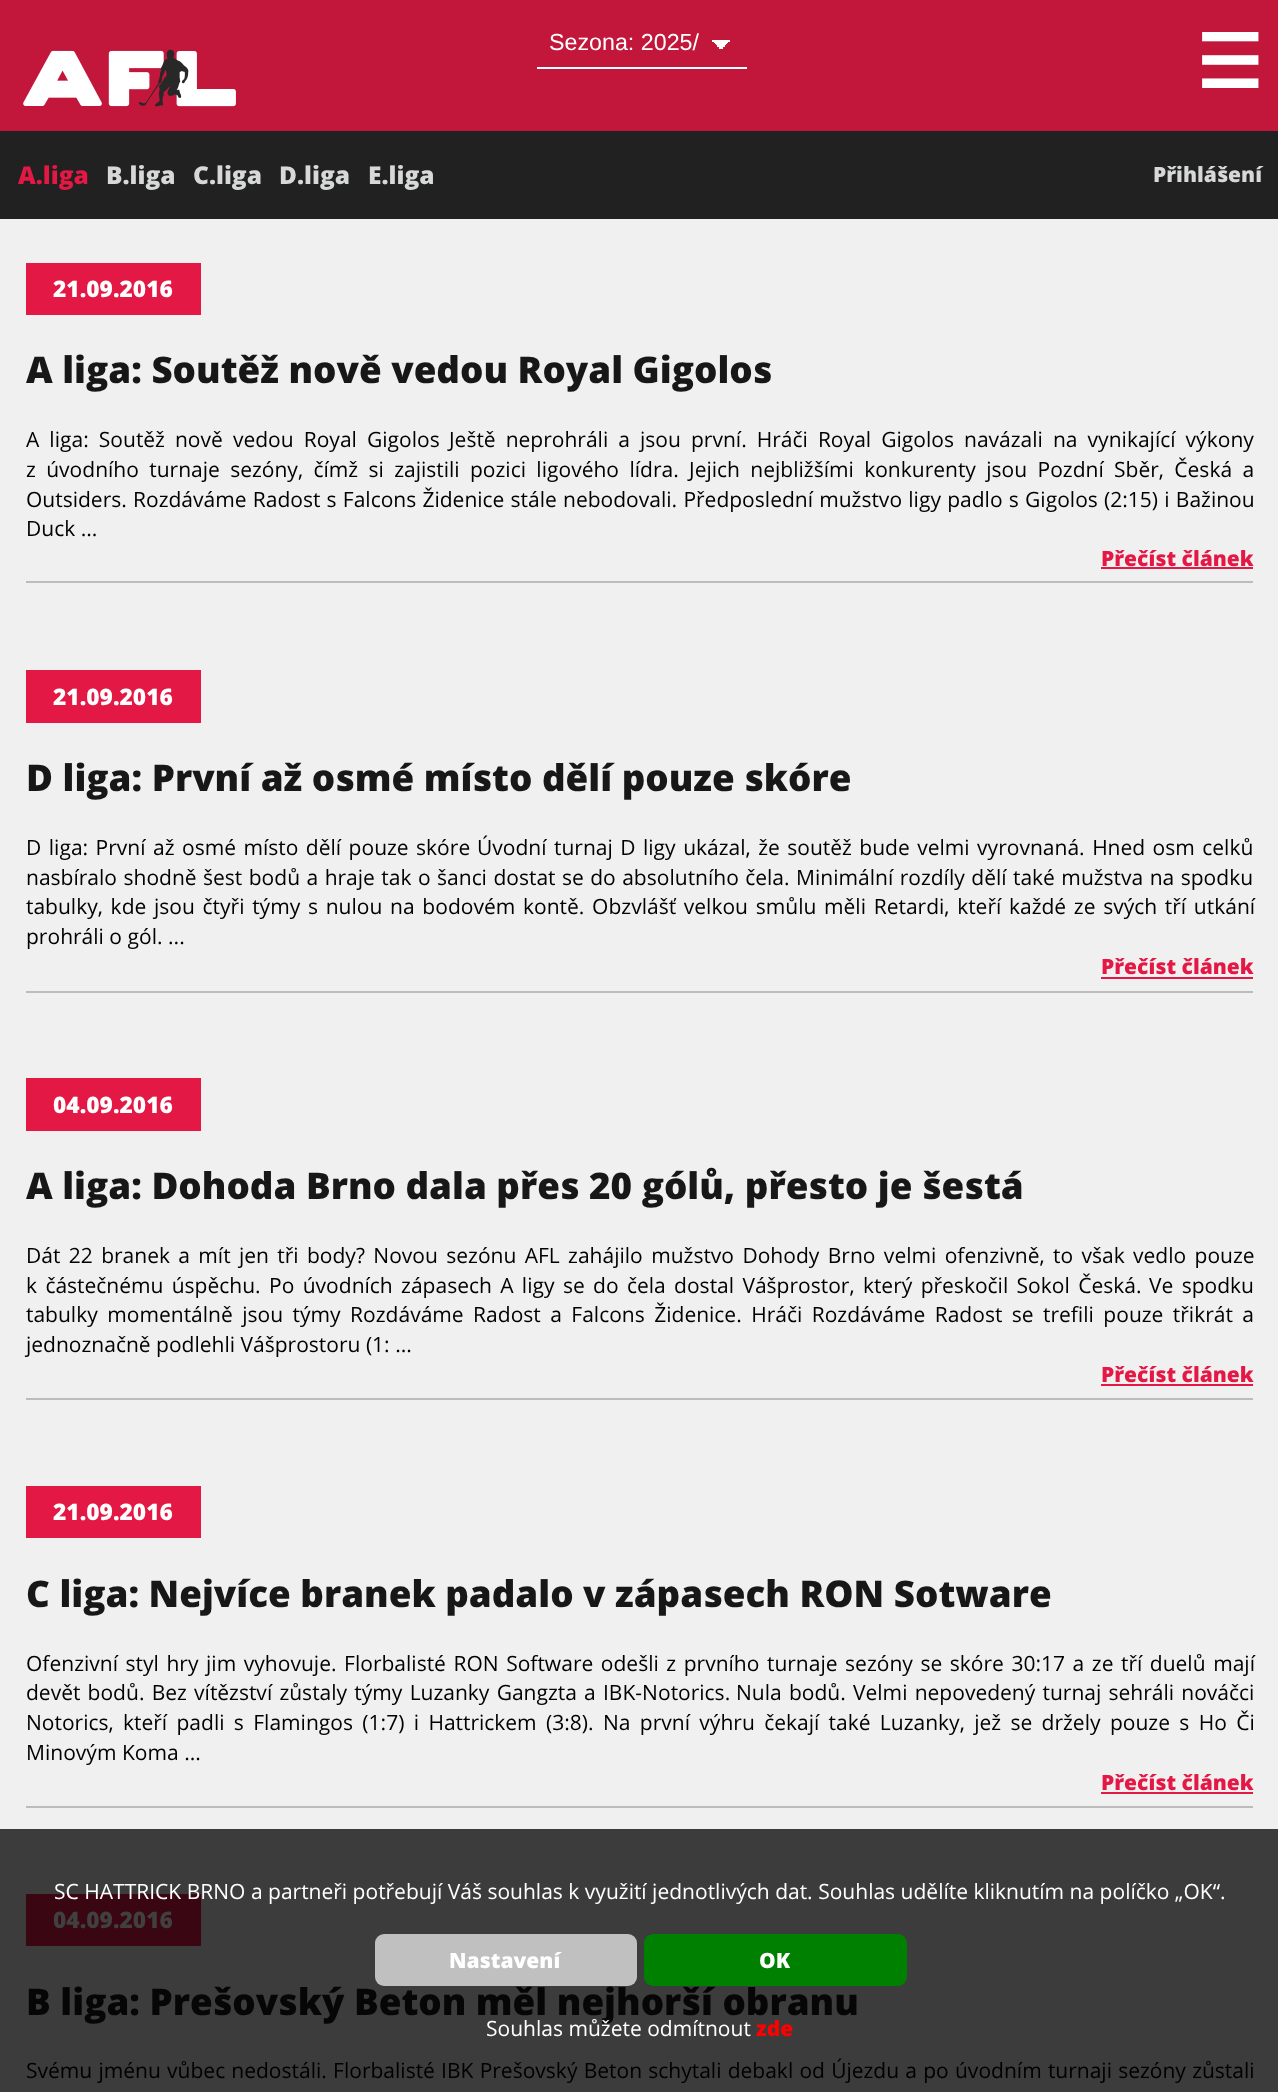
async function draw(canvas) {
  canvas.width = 1278
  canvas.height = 2092
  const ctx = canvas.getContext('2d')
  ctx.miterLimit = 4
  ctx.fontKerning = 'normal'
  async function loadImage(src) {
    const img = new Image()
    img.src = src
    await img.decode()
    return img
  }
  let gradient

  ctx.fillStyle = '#f0f0f0'
  ctx.fillRect(0, 0, 1278, 2092)
  ctx.fillStyle = '#3c3c3c'
  ctx.fillRect(0, 1829, 1278, 263)
  ctx.fillStyle = '#c2173b'
  ctx.fillRect(0, 0, 1278, 131)
  gradient = ctx.createLinearGradient(721, 41, 730, 50)
  gradient.addColorStop(0.5, '#fff')
  gradient.addColorStop(0.5, '#c2173b')
  ctx.fillStyle = gradient
  ctx.fillRect(721, 40, 9, 9)
  gradient = ctx.createLinearGradient(712, 50, 721, 41)
  gradient.addColorStop(0.5, '#c2173b')
  gradient.addColorStop(0.5, '#fff')
  ctx.fillStyle = gradient
  ctx.fillRect(712, 40, 9, 9)
  ctx.fillStyle = '#fff'
  ctx.fillRect(537, 67, 210, 2)
  ctx.font = '23.25px Liberation Sans'
  ctx.fillText('Sezona: 2025/', 549, 50)
  ctx.drawImage(await loadImage('image0.png'), 23, 49, 213, 58)
  ctx.font = 'bold 74px DejaVu Sans'
  ctx.fillText('☰', 1196, 88)
  ctx.fillStyle = '#212121'
  ctx.fillRect(0, 131, 1278, 88)
  ctx.font = '800 24.5px Open Sans'
  ctx.fillStyle = '#e41844'
  ctx.fillText('A.liga', 18, 184)
  ctx.fillStyle = '#d7d8d8'
  ctx.fillText('B.liga', 106, 184)
  ctx.fillText('C.liga', 193, 184)
  ctx.fillText('D.liga', 279, 184)
  ctx.fillText('E.liga', 368, 184)
  ctx.font = '800 21px Open Sans'
  ctx.fillText('Přihlášení', 1153, 182)
  ctx.fillStyle = '#e41844'
  ctx.fillRect(26, 263, 175, 52)
  ctx.font = '800 22.75px Open Sans'
  ctx.fillStyle = '#fff'
  ctx.fillText('21.09.2016', 53, 297)
  ctx.font = '800 36.75px Open Sans'
  ctx.fillStyle = '#171717'
  ctx.fillText('A liga: Soutěž nově vedou Royal Gigolos', 26, 383)
  ctx.wordSpacing = '4.6px'
  ctx.font = '21px Open Sans'
  ctx.fillStyle = '#000'
  ctx.fillText('A liga: Soutěž nově vedou Royal Gigolos', 26, 447)
  ctx.fillText('Ještě neprohráli a jsou první. Hráči Royal Gigolos navázali na vynikající výkony', 449, 447)
  ctx.wordSpacing = '4.9px'
  ctx.fillText('z úvodního turnaje sezóny, čímž si zajistili pozici ligového lídra. Jejich nejbližšími konkurenty jsou Pozdní Sběr, Česká a', 26, 477)
  ctx.wordSpacing = '0px'
  ctx.fillText('Outsiders.', 26, 507)
  ctx.wordSpacing = '0.75px'
  ctx.fillText('Rozdáváme Radost s Falcons Židenice stále nebodovali. Předposlední mužstvo ligy padlo s Gigolos (2:15) i Bažinou', 133, 507)
  ctx.wordSpacing = '0px'
  ctx.fillText('Duck ...', 26, 536)
  ctx.font = '800 21px Open Sans'
  ctx.fillStyle = '#e41844'
  ctx.fillText('Přečíst článek', 1101, 566)
  ctx.fillRect(1101, 567, 152, 2)
  ctx.fillStyle = '#bcbcbc'
  ctx.fillRect(26, 581, 1227, 2)
  ctx.fillStyle = '#e41844'
  ctx.fillRect(26, 670, 175, 53)
  ctx.font = '800 22.75px Open Sans'
  ctx.fillStyle = '#fff'
  ctx.fillText('21.09.2016', 53, 705)
  ctx.font = '800 36.75px Open Sans'
  ctx.fillStyle = '#171717'
  ctx.fillText('D liga: První až osmé místo dělí pouze skóre', 26, 791)
  ctx.wordSpacing = '2px'
  ctx.font = '21px Open Sans'
  ctx.fillStyle = '#000'
  ctx.fillText('D liga: První až osmé místo dělí pouze skóre', 26, 855)
  ctx.fillText('Úvodní turnaj D ligy ukázal, že soutěž bude velmi vyrovnaná. Hned osm celků', 477, 855)
  ctx.wordSpacing = '1px'
  ctx.fillText('nasbíralo shodně šest bodů a hraje tak o šanci dostat se do absolutního čela.', 26, 885)
  ctx.fillText('Minimální rozdíly dělí také mužstva na spodku', 796, 885)
  ctx.wordSpacing = '2.25px'
  ctx.fillText('tabulky, kde jsou čtyři týmy s nulou na bodovém kontě. Obzvlášť velkou smůlu měli Retardi, kteří každé ze svých tří utkání', 26, 914)
  ctx.wordSpacing = '0px'
  ctx.fillText('prohráli o gól. ...', 26, 944)
  ctx.font = '800 21px Open Sans'
  ctx.fillStyle = '#e41844'
  ctx.fillText('Přečíst článek', 1101, 974)
  ctx.fillRect(1101, 977, 152, 2)
  ctx.fillStyle = '#bcbcbc'
  ctx.fillRect(26, 991, 1227, 2)
  ctx.fillStyle = '#e41844'
  ctx.fillRect(26, 1078, 175, 53)
  ctx.font = '800 22.75px Open Sans'
  ctx.fillStyle = '#fff'
  ctx.fillText('04.09.2016', 53, 1113)
  ctx.font = '800 36.75px Open Sans'
  ctx.fillStyle = '#171717'
  ctx.fillText('A liga: Dohoda Brno dala přes 20 gólů, přesto je šestá', 26, 1199)
  ctx.wordSpacing = '2.9px'
  ctx.font = '21px Open Sans'
  ctx.fillStyle = '#000'
  ctx.fillText('Dát 22 branek a mít jen tři body? Novou sezónu AFL zahájilo mužstvo Dohody Brno velmi ofenzivně, to však vedlo pouze', 26, 1263)
  ctx.fillText('k částečnému úspěchu. Po úvodních zápasech A ligy se do čela dostal Vášprostor, který přeskočil Sokol Česká.', 26, 1293)
  ctx.fillText('Ve spodku', 1149, 1293)
  ctx.wordSpacing = '4px'
  ctx.fillText('tabulky momentálně jsou týmy Rozdáváme Radost a Falcons Židenice. Hráči Rozdáváme Radost se trefili pouze třikrát a', 26, 1322)
  ctx.wordSpacing = '0px'
  ctx.fillText('jednoznačně podlehli Vášprostoru (1: ...', 26, 1352)
  ctx.font = '800 21px Open Sans'
  ctx.fillStyle = '#e41844'
  ctx.fillText('Přečíst článek', 1101, 1382)
  ctx.fillRect(1101, 1384, 152, 2)
  ctx.fillStyle = '#bcbcbc'
  ctx.fillRect(26, 1398, 1227, 2)
  ctx.fillStyle = '#e41844'
  ctx.fillRect(26, 1486, 175, 52)
  ctx.font = '800 22.75px Open Sans'
  ctx.fillStyle = '#fff'
  ctx.fillText('21.09.2016', 53, 1520)
  ctx.font = '800 36.75px Open Sans'
  ctx.fillStyle = '#171717'
  ctx.fillText('C liga: Nejvíce branek padalo v zápasech RON Sotware', 26, 1607)
  ctx.wordSpacing = '2.1px'
  ctx.font = '21px Open Sans'
  ctx.fillStyle = '#000'
  ctx.fillText('Ofenzivní styl hry jim vyhovuje. Florbalisté RON Software odešli z prvního turnaje sezóny se skóre 30:17 a ze tří duelů mají', 26, 1671)
  ctx.wordSpacing = '1.75px'
  ctx.fillText('devět bodů. Bez vítězství zůstaly týmy Luzanky Gangzta a IBK-Notorics.', 26, 1700)
  ctx.fillText('Nula bodů. Velmi nepovedený turnaj sehráli nováčci', 736, 1700)
  ctx.wordSpacing = '3.9px'
  ctx.fillText('Notorics, kteří padli s Flamingos (1:7) i Hattrickem (3:8). Na první výhru čekají také Luzanky, jež se držely pouze s Ho Či', 26, 1730)
  ctx.wordSpacing = '0px'
  ctx.fillText('Minovým Koma ...', 26, 1760)
  ctx.font = '800 21px Open Sans'
  ctx.fillStyle = '#e41844'
  ctx.fillText('Přečíst článek', 1101, 1790)
  ctx.fillRect(1101, 1792, 152, 2)
  ctx.fillStyle = '#bcbcbc'
  ctx.fillRect(26, 1806, 1227, 2)
  ctx.fillStyle = '#390611'
  ctx.fillRect(26, 1894, 175, 52)
  ctx.font = '800 22.75px Open Sans'
  ctx.fillStyle = '#404040'
  ctx.fillText('04.09.2016', 53, 1928)
  ctx.font = '800 36.75px Open Sans'
  ctx.fillStyle = '#060606'
  ctx.fillText('B liga: Prešovský Beton měl nejhorší obranu', 26, 2015)
  ctx.wordSpacing = '0.75px'
  ctx.font = '21px Open Sans'
  ctx.fillStyle = '#000'
  ctx.fillText('Svému jménu vůbec nedostáli. Florbalisté IBK Prešovský Beton schytali debakl od Újezdu a po úvodním turnaji sezóny zůstali', 26, 2078)
  ctx.wordSpacing = '0px'
  ctx.fillStyle = '#fff'
  ctx.fillText('SC HATTRICK BRNO a partneři potřebují Váš souhlas k využití jednotlivých dat. Souhlas udělíte kliknutím na políčko „OK“.', 54, 1899)
  ctx.fillStyle = '#c0c0c0'
  ctx.beginPath()
  ctx.roundRect(375, 1934, 262, 52, 9)
  ctx.fill()
  ctx.font = '800 21px Open Sans'
  ctx.fillStyle = '#fff'
  ctx.fillText('Nastavení', 449, 1968)
  ctx.fillStyle = '#008000'
  ctx.beginPath()
  ctx.roundRect(644, 1934, 263, 52, 9)
  ctx.fill()
  ctx.fillStyle = '#fff'
  ctx.fillText('OK', 759, 1968)
  ctx.font = '21px Open Sans'
  ctx.fillText('Souhlas můžete odmítnout', 486, 2036)
  ctx.font = '800 21px Open Sans'
  ctx.fillStyle = '#f00'
  ctx.fillText('zde', 756, 2036)
}

draw(document.querySelector('canvas'))
